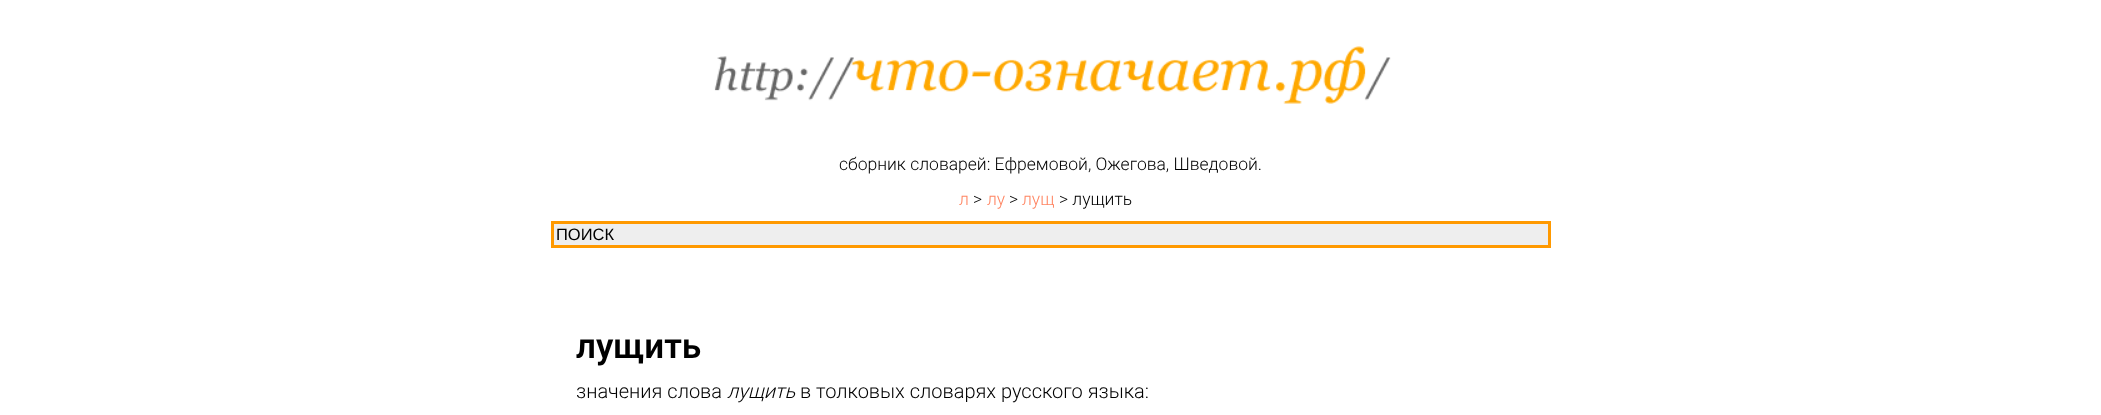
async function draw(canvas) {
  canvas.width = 2101
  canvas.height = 415
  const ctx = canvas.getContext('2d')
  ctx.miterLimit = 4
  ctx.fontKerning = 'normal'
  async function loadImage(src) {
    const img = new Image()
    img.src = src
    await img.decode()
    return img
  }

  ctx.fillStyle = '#fff'
  ctx.fillRect(0, 0, 2101, 415)
  ctx.drawImage(await loadImage('image0.png'), 714, 46, 677, 58)
  ctx.font = '300 17.5px Roboto'
  ctx.fillStyle = '#000'
  ctx.fillText('сборник словарей: Ефремовой, Ожегова, Шведовой.', 839, 170)
  ctx.fillStyle = '#ff8562'
  ctx.fillText('л', 959, 205)
  ctx.fillStyle = '#000'
  ctx.fillText('>', 973, 205)
  ctx.fillStyle = '#ff8562'
  ctx.fillText('лу', 987, 205)
  ctx.fillStyle = '#000'
  ctx.fillText('>', 1009, 205)
  ctx.fillStyle = '#ff8562'
  ctx.fillText('лущ', 1022, 205)
  ctx.fillStyle = '#000'
  ctx.fillText('> лущить', 1059, 205)
  ctx.fillStyle = '#eee'
  ctx.beginPath()
  ctx.rect(552.5, 222.5, 997, 24)
  ctx.fill()
  ctx.strokeStyle = '#f90'
  ctx.lineWidth = 3
  ctx.stroke()
  ctx.font = '16.5px Liberation Sans'
  ctx.fillStyle = '#000'
  ctx.fillText('ПОИСК', 556, 240)
  ctx.font = '600 35px Roboto'
  ctx.fillText('лущить', 576, 358)
  ctx.font = '300 20px Roboto'
  ctx.fillText('значения слова', 576, 398)
  ctx.font = 'italic 300 20px Roboto'
  ctx.fillText('лущить', 727, 398)
  ctx.font = '300 20px Roboto'
  ctx.fillText('в толковых словарях русского языка:', 800, 398)
}

draw(document.querySelector('canvas'))
